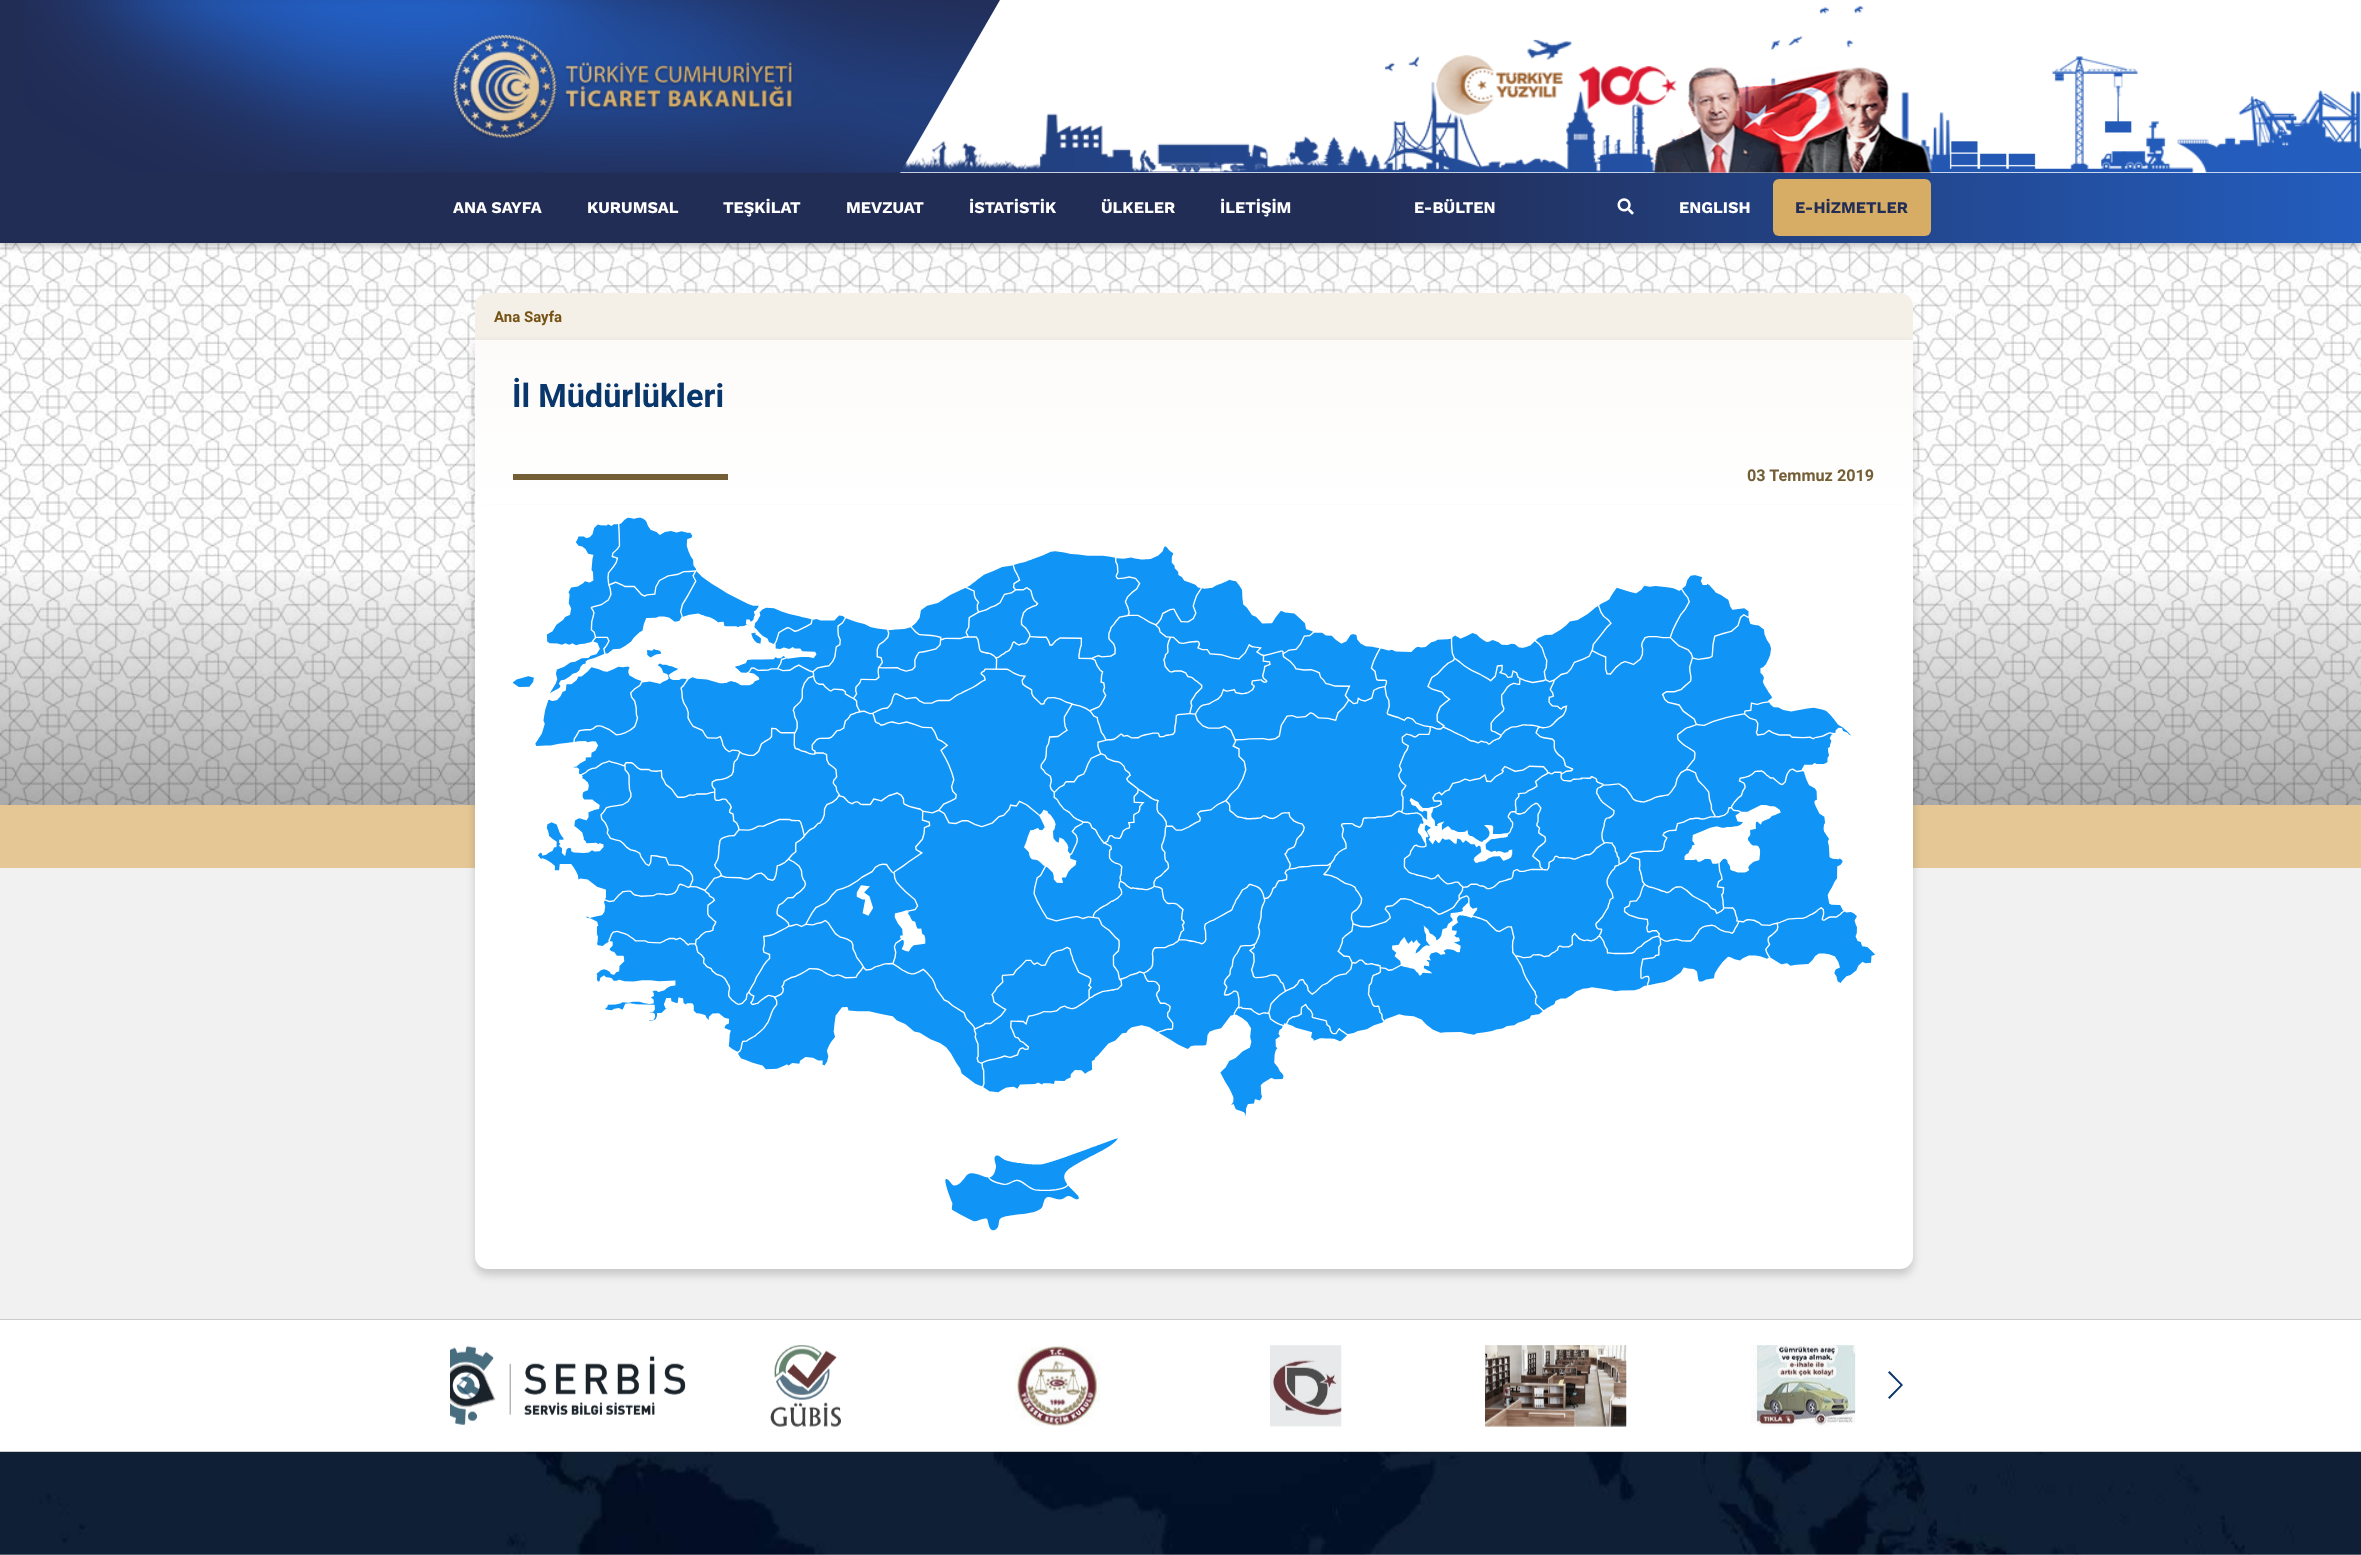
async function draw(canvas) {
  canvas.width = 2361
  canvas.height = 1555
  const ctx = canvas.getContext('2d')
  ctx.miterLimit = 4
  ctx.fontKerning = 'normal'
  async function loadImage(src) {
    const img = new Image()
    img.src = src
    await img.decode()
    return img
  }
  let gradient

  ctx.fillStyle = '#fff'
  ctx.fillRect(0, 0, 2361, 1555)
  ctx.drawImage(await loadImage('image6.png'), 0, 243, 2361, 562)
  ctx.save()
  ctx.beginPath()
  ctx.rect(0, 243, 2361, 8)
  ctx.clip()
  ctx.fillStyle = '#0000004d'
  ctx.filter = 'blur(4px)'
  ctx.beginPath()
  ctx.rect(0, 3, 2361, 242)
  ctx.fill()
  ctx.filter = 'none'
  ctx.restore()
  ctx.drawImage(await loadImage('image1.png'), 900, 6, 1461, 167)
  ctx.save()
  ctx.beginPath()
  ctx.rect(0, 0, 2361, 173)
  ctx.clip()
  ctx.fillStyle = '#222d56'
  ctx.beginPath()
  ctx.moveTo(138, -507)
  ctx.lineTo(1004, -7)
  ctx.lineTo(629, 642)
  ctx.lineTo(-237, 142)
  ctx.closePath()
  ctx.fill()
  ctx.restore()
  ctx.drawImage(await loadImage('image0.png'), 24, 0, 974, 173)
  ctx.drawImage(await loadImage('image2.png'), 452, 35, 341, 103)
  ctx.drawImage(await loadImage('image3.png'), 1431, 55, 246, 65)
  ctx.drawImage(await loadImage('image4.png'), 1654, 67, 278, 106)
  gradient = ctx.createLinearGradient(0, 208, 2361, 207)
  gradient.addColorStop(0.58, '#222d56')
  gradient.addColorStop(1, '#235dbe')
  ctx.fillStyle = gradient
  ctx.fillRect(0, 173, 2361, 70)
  ctx.font = 'bold 16.25px Work Sans'
  ctx.fillStyle = '#fff'
  ctx.fillText('ANA SAYFA', 453, 213)
  ctx.fillText('KURUMSAL', 587, 213)
  ctx.fillText('TEŞKİLAT', 723, 213)
  ctx.fillText('MEVZUAT', 846, 213)
  ctx.fillText('İSTATİSTİK', 969, 213)
  ctx.fillText('ÜLKELER', 1101, 213)
  ctx.fillText('İLETİŞİM', 1220, 213)
  ctx.fillText('E-BÜLTEN', 1414, 213)
  ctx.drawImage(await loadImage('image5.png'), 1617, 198, 17, 17)
  ctx.fillText('ENGLISH', 1679, 213)
  ctx.fillStyle = '#d7ad65'
  ctx.beginPath()
  ctx.roundRect(1773, 179, 158, 57, 6)
  ctx.fill()
  ctx.fillStyle = '#222d56'
  ctx.fillText('E-HİZMETLER', 1795, 213)
  ctx.fillStyle = '#f1f1f1'
  ctx.fillRect(0, 868, 2361, 451)
  ctx.fillStyle = '#f4f0e8'
  ctx.beginPath()
  ctx.roundRect(475, 293, 1438, 47, [13, 13, 0, 0])
  ctx.fill()
  ctx.font = 'bold 15px Roboto'
  ctx.fillStyle = '#765314'
  ctx.fillText('Ana Sayfa', 494, 322)
  ctx.fillStyle = '#0000002b'
  ctx.filter = 'blur(4px)'
  ctx.beginPath()
  ctx.rect(475, 344, 1438, 165)
  ctx.fill()
  ctx.filter = 'none'
  gradient = ctx.createLinearGradient(1194, 340, 1194, 505)
  gradient.addColorStop(0, '#fcfbf9')
  gradient.addColorStop(1, '#fff')
  ctx.fillStyle = gradient
  ctx.fillRect(475, 340, 1438, 165)
  ctx.font = 'bold 32.5px Roboto'
  ctx.fillStyle = '#09376b'
  ctx.fillText('İl Müdürlükleri', 512, 407)
  ctx.fillStyle = '#745e36'
  ctx.fillRect(513, 474, 215, 6)
  ctx.font = 'bold 16.25px Roboto'
  ctx.fillText('03 Temmuz 2019', 1747, 481)
  gradient = ctx.createLinearGradient(1181, 555, 1181, 868)
  gradient.addColorStop(0, '#00000000')
  gradient.addColorStop(0.8, '#00000054')
  gradient.addColorStop(0.8, '#e4c795')
  gradient.addColorStop(1, '#e4c795')
  ctx.fillStyle = gradient
  ctx.fillRect(0, 571, 2361, 297)
  ctx.fillStyle = '#0000002b'
  ctx.filter = 'blur(4px)'
  ctx.beginPath()
  ctx.roundRect(475, 511, 1438, 764, 13)
  ctx.fill()
  ctx.filter = 'none'
  ctx.fillStyle = '#fff'
  ctx.beginPath()
  ctx.roundRect(475, 505, 1438, 764, [0, 0, 13, 13])
  ctx.fill()
  ctx.drawImage(await loadImage('image7.png'), 512, 517, 1363, 714)
  ctx.fillStyle = '#ccc'
  ctx.fillRect(0, 1319, 2361, 1)
  ctx.fillRect(0, 1451, 2361, 1)
  ctx.drawImage(await loadImage('image8.png'), 450, 1345, 236, 81)
  ctx.drawImage(await loadImage('image9.png'), 770, 1345, 71, 82)
  ctx.drawImage(await loadImage('image10.png'), 1015, 1345, 85, 81)
  ctx.drawImage(await loadImage('image11.png'), 1270, 1345, 72, 82)
  ctx.drawImage(await loadImage('image12.png'), 1485, 1345, 142, 82)
  ctx.drawImage(await loadImage('image13.png'), 1751, 1345, 105, 82)
  ctx.fillStyle = '#09376b59'
  ctx.beginPath()
  ctx.moveTo(457.5, 1385)
  ctx.lineTo(471, 1371)
  ctx.lineTo(472.5, 1372.5)
  ctx.lineTo(460, 1385)
  ctx.lineTo(472.5, 1397.5)
  ctx.lineTo(471, 1399)
  ctx.closePath()
  ctx.fill()
  ctx.fillStyle = '#09376b'
  ctx.beginPath()
  ctx.moveTo(1903, 1385)
  ctx.lineTo(1889.5, 1399)
  ctx.lineTo(1888, 1397.5)
  ctx.lineTo(1900.5, 1385)
  ctx.lineTo(1888, 1372.5)
  ctx.lineTo(1889.5, 1371)
  ctx.closePath()
  ctx.fill()
  ctx.drawImage(await loadImage('image14.png'), 0, 1452, 2361, 103)
}

draw(document.querySelector('canvas'))
